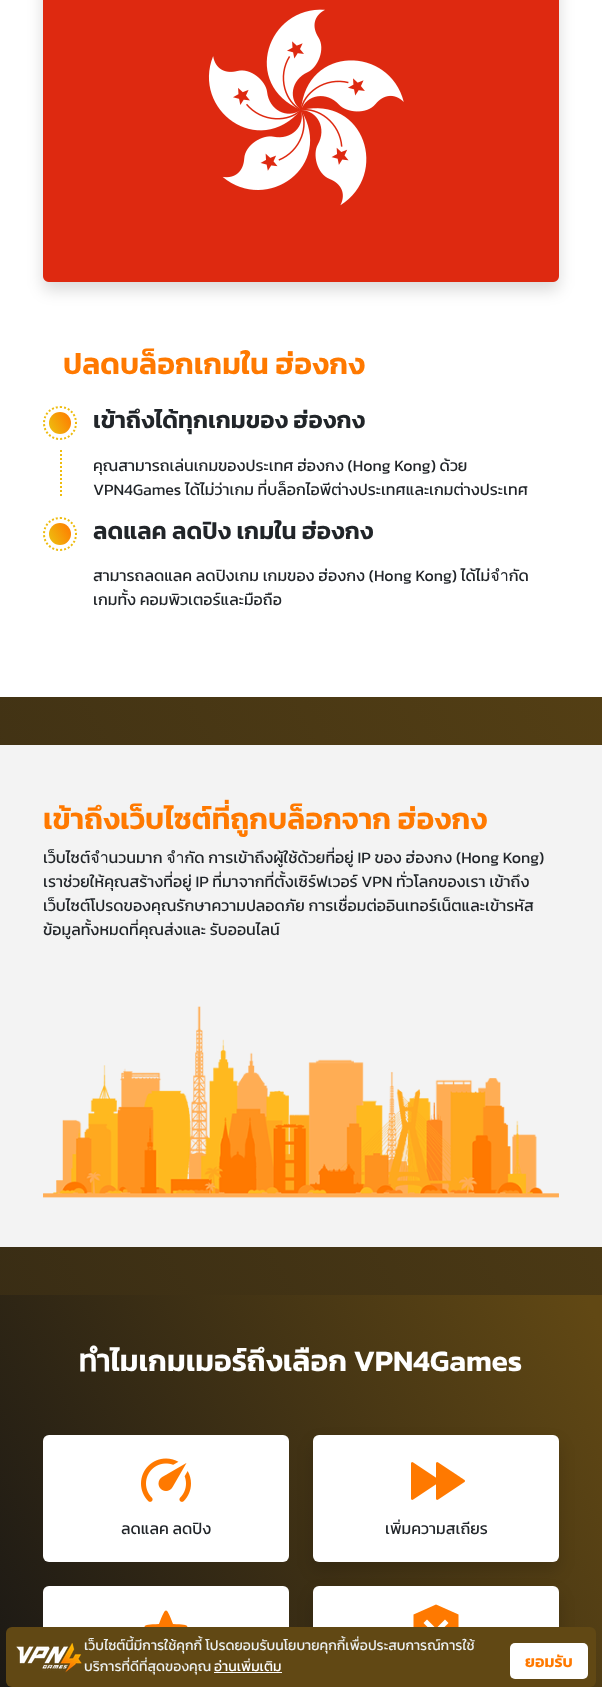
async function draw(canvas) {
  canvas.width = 602
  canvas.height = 1687
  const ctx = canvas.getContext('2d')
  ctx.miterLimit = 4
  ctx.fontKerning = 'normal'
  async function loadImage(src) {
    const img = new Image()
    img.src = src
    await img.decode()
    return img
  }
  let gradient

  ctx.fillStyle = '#fff'
  ctx.fillRect(0, 0, 602, 1687)
  gradient = ctx.createLinearGradient(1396, 1214, -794, 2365)
  gradient.addColorStop(0.02, '#614814')
  gradient.addColorStop(0.92, '#191715')
  ctx.fillStyle = gradient
  ctx.fillRect(0, 697, 602, 598)
  ctx.fillStyle = '#00000026'
  ctx.filter = 'blur(8px)'
  ctx.beginPath()
  ctx.roundRect(43, -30, 516, 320, 6)
  ctx.fill()
  ctx.filter = 'none'
  ctx.drawImage(await loadImage('image0.png'), 43, 0, 516, 282)
  ctx.font = '600 30px Kanit'
  ctx.fillStyle = '#ff7900'
  ctx.fillText('ปลดบล็อกเกมใน ฮ่องกง', 63, 374)
  gradient = ctx.createLinearGradient(73, 416, 47, 430)
  gradient.addColorStop(0.02, '#ff7900')
  gradient.addColorStop(0.92, '#eebc0f')
  ctx.fillStyle = gradient
  ctx.beginPath()
  ctx.arc(60, 423, 11, 0, 2 * Math.PI)
  ctx.fill()
  ctx.beginPath()
  ctx.moveTo(60, 407)
  ctx.bezierCurveTo(69, 407, 76, 414, 76, 423)
  ctx.bezierCurveTo(76, 432, 69, 439, 60, 439)
  ctx.bezierCurveTo(51, 439, 44, 432, 44, 423)
  ctx.bezierCurveTo(44, 414, 51, 407, 60, 407)
  ctx.closePath()
  ctx.strokeStyle = '#eebc0f'
  ctx.lineWidth = 2
  ctx.setLineDash([2, 2])
  ctx.stroke()
  ctx.font = '600 24px Kanit'
  ctx.fillStyle = '#212529'
  ctx.fillText('เข้าถึงได้ทุกเกมของ ฮ่องกง', 93, 428)
  ctx.beginPath()
  ctx.moveTo(61, 450)
  ctx.lineTo(61, 498)
  ctx.stroke()
  ctx.font = '16px Kanit'
  ctx.fillText('คุณสามารถเล่นเกมของประเทศ ฮ่องกง (Hong Kong) ด้วย', 93, 471)
  ctx.fillText('VPN4Games ได้ไม่ว่าเกม ที่บล็อกไอพีต่างประเทศและเกมต่างประเทศ', 93, 495)
  gradient = ctx.createLinearGradient(73, 527, 47, 541)
  gradient.addColorStop(0.02, '#ff7900')
  gradient.addColorStop(0.92, '#eebc0f')
  ctx.fillStyle = gradient
  ctx.beginPath()
  ctx.arc(60, 534, 11, 0, 2 * Math.PI)
  ctx.fill()
  ctx.beginPath()
  ctx.moveTo(60, 518)
  ctx.bezierCurveTo(69, 518, 76, 525, 76, 534)
  ctx.bezierCurveTo(76, 543, 69, 550, 60, 550)
  ctx.bezierCurveTo(51, 550, 44, 543, 44, 534)
  ctx.bezierCurveTo(44, 525, 51, 518, 60, 518)
  ctx.closePath()
  ctx.stroke()
  ctx.font = '600 24px Kanit'
  ctx.fillStyle = '#212529'
  ctx.fillText('ลดแลค ลดปิง เกมใน ฮ่องกง', 93, 539)
  ctx.font = '16px Kanit'
  ctx.fillText('สามารถลดแลค ลดปิงเกม เกมของ ฮ่องกง (Hong Kong) ได้ไม่จำกัด', 93, 581)
  ctx.fillText('เกมทั้ง คอมพิวเตอร์และมือถือ', 93, 605)
  ctx.fillStyle = '#f3f3f3'
  ctx.fillRect(0, 745, 602, 502)
  ctx.font = '600 30px Kanit'
  ctx.fillStyle = '#ff7900'
  ctx.fillText('เข้าถึงเว็บไซต์ที่ถูกบล็อกจาก ฮ่องกง', 43, 829)
  ctx.font = '16px Kanit'
  ctx.fillStyle = '#212529'
  ctx.fillText('เว็บไซต์จำนวนมาก จำกัด การเข้าถึงผู้ใช้ด้วยที่อยู่ IP ของ ฮ่องกง (Hong Kong)', 43, 863)
  ctx.fillText('เราช่วยให้คุณสร้างที่อยู่ IP ที่มาจากที่ตั้งเซิร์ฟเวอร์ VPN ทั่วโลกของเรา เข้าถึง', 43, 887)
  ctx.fillText('เว็บไซต์โปรดของคุณรักษาความปลอดภัย การเชื่อมต่ออินเทอร์เน็ตและเข้ารหัส', 43, 911)
  ctx.fillText('ข้อมูลทั้งหมดที่คุณส่งและ รับออนไลน์', 43, 935)
  ctx.drawImage(await loadImage('image1.png'), 43, 1006, 516, 192)
  gradient = ctx.createLinearGradient(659, 1403, -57, 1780)
  gradient.addColorStop(0.02, '#614814')
  gradient.addColorStop(0.92, '#191715')
  ctx.fillStyle = gradient
  ctx.fillRect(0, 1295, 602, 392)
  ctx.font = '600 30px Kanit'
  ctx.fillStyle = '#fff'
  ctx.fillText('ทำไมเกมเมอร์ถึงเลือก VPN4Games', 79, 1371)
  ctx.beginPath()
  ctx.roundRect(43, 1435, 246, 127, 6)
  ctx.fill()
  ctx.drawImage(await loadImage('image2.png'), 141, 1458, 50, 44)
  ctx.font = '16px Kanit'
  ctx.fillStyle = '#212529'
  ctx.fillText('ลดแลค ลดปิง', 121, 1534)
  ctx.fillStyle = '#00000026'
  ctx.filter = 'blur(8px)'
  ctx.beginPath()
  ctx.roundRect(313, 1443, 246, 127, 6)
  ctx.fill()
  ctx.filter = 'none'
  ctx.fillStyle = '#fff'
  ctx.beginPath()
  ctx.roundRect(313, 1435, 246, 127, 6)
  ctx.fill()
  ctx.drawImage(await loadImage('image3.png'), 411, 1462, 54, 38)
  ctx.fillStyle = '#212529'
  ctx.fillText('เพิ่มความสเถียร', 385, 1534)
  ctx.fillStyle = '#fff'
  ctx.beginPath()
  ctx.roundRect(43, 1586, 246, 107, 6)
  ctx.fill()
  ctx.fillStyle = '#ff7900'
  ctx.beginPath()
  ctx.moveTo(166, 1645)
  ctx.bezierCurveTo(182, 1655, 182, 1655, 177, 1637)
  ctx.bezierCurveTo(191, 1625, 192, 1625, 173, 1624)
  ctx.bezierCurveTo(166, 1606, 166, 1606, 159, 1624)
  ctx.bezierCurveTo(140, 1625, 141, 1625, 155, 1637)
  ctx.lineTo(152, 1649)
  ctx.bezierCurveTo(151, 1651, 154, 1653, 156, 1651)
  ctx.closePath()
  ctx.fill()
  ctx.fillStyle = '#00000026'
  ctx.filter = 'blur(8px)'
  ctx.beginPath()
  ctx.roundRect(313, 1594, 246, 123, 6)
  ctx.fill()
  ctx.filter = 'none'
  ctx.fillStyle = '#fff'
  ctx.beginPath()
  ctx.roundRect(313, 1586, 246, 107, 6)
  ctx.fill()
  ctx.drawImage(await loadImage('image4.png'), 413, 1604, 46, 23)
  ctx.fillStyle = '#614814'
  ctx.beginPath()
  ctx.roundRect(6, 1627, 590, 60, 6)
  ctx.fill()
  ctx.drawImage(await loadImage('image5.png'), 16, 1643, 66, 30)
  ctx.font = '14px Kanit'
  ctx.fillStyle = '#ecf0f1'
  ctx.fillText('เว็บไซต์นี้มีการใช้คุกกี้ โปรดยอมรับนโยบายคุกกี้เพื่อประสบการณ์การใช้', 84, 1650)
  ctx.fillText('บริการที่ดีที่สุดของคุณ', 84, 1671)
  ctx.fillStyle = '#fff'
  ctx.fillText('อ่านเพิ่มเติม', 214, 1671)
  ctx.fillRect(214, 1672, 68, 1)
  ctx.beginPath()
  ctx.roundRect(510, 1643, 78, 36, 5)
  ctx.fill()
  ctx.font = '600 16px Kanit'
  ctx.fillStyle = '#ff7900'
  ctx.fillText('ยอมรับ', 525, 1667)
}

draw(document.querySelector('canvas'))
